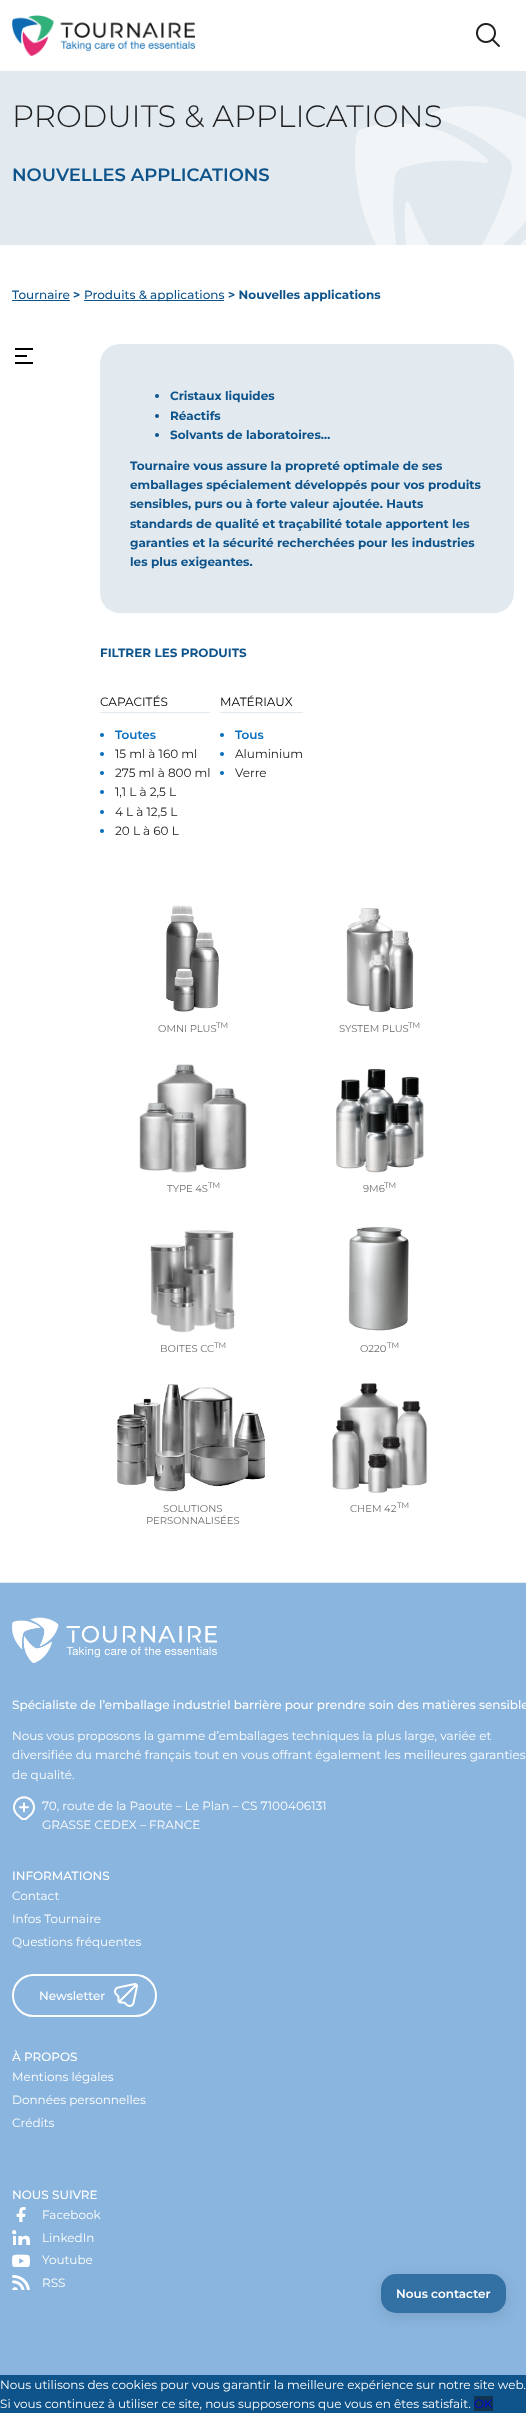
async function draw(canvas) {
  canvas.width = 526
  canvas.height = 2413
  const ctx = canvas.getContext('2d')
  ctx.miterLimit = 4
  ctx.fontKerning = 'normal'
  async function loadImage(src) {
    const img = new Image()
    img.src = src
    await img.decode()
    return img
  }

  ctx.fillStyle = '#fff'
  ctx.fillRect(0, 0, 526, 2413)
  ctx.drawImage(await loadImage('image0.png'), 12, 15, 183, 41)
  ctx.drawImage(await loadImage('image1.png'), 476, 23, 24, 24)
  ctx.fillStyle = '#e2eaf0'
  ctx.fillRect(0, 71, 526, 174)
  ctx.drawImage(await loadImage('image2.png'), 355, 106, 171, 139)
  ctx.font = '300 30.8px Montserrat'
  ctx.fillStyle = '#202020'
  ctx.fillText('PRODUITS & APPLICATIONS', 12, 127)
  ctx.font = '600 18px Montserrat'
  ctx.fillStyle = '#0e538a'
  ctx.fillText('NOUVELLES APPLICATIONS', 12, 181)
  ctx.fillStyle = '#e2eaf0'
  ctx.fillRect(0, 1582, 526, 1)
  ctx.font = '500 12px Montserrat'
  ctx.fillStyle = '#0e538a'
  ctx.fillText('Tournaire', 12, 299)
  ctx.fillRect(12, 300, 58, 1)
  ctx.font = 'bold 12px Montserrat'
  ctx.fillText('>', 73, 299)
  ctx.fillRect(84, 300, 140, 1)
  ctx.font = '500 12px Montserrat'
  ctx.fillText('Produits & applications', 84, 299)
  ctx.font = 'bold 12px Montserrat'
  ctx.fillText('> Nouvelles applications', 228, 299)
  ctx.drawImage(await loadImage('image3.png'), 15, 348, 18, 16)
  ctx.fillStyle = '#e2eaf0'
  ctx.beginPath()
  ctx.roundRect(100, 344, 414, 269, 20)
  ctx.fill()
  ctx.fillStyle = '#0e538a'
  ctx.beginPath()
  ctx.arc(157, 396, 2, 0, 2 * Math.PI)
  ctx.fill()
  ctx.fillText('Cristaux liquides', 170, 400)
  ctx.beginPath()
  ctx.arc(157, 416, 2, 0, 2 * Math.PI)
  ctx.fill()
  ctx.fillText('Réactifs', 170, 420)
  ctx.beginPath()
  ctx.arc(157, 435, 2, 0, 2 * Math.PI)
  ctx.fill()
  ctx.fillText('Solvants de laboratoires…', 170, 439)
  ctx.fillText('Tournaire vous assure la propreté optimale de ses', 130, 470)
  ctx.fillText('emballages spécialement développés pour vos produits', 130, 489)
  ctx.fillText('sensibles, purs ou à forte valeur ajoutée. Hauts', 130, 508)
  ctx.fillText('standards de qualité et traçabilité totale apportent les', 130, 528)
  ctx.fillText('garanties et la sécurité recherchées pour les industries', 130, 547)
  ctx.fillText('les plus exigeantes.', 130, 566)
  ctx.fillText('FILTRER LES PRODUITS', 100, 657)
  ctx.fillStyle = '#e2eaf0'
  ctx.fillRect(100, 712, 110, 1)
  ctx.font = '12px Montserrat'
  ctx.fillStyle = '#000'
  ctx.fillText('CAPACITÉS', 100, 706)
  ctx.fillStyle = '#076ebf'
  ctx.beginPath()
  ctx.arc(102, 735, 2, 0, 2 * Math.PI)
  ctx.fill()
  ctx.font = '600 12px Montserrat'
  ctx.fillText('Toutes', 115, 739)
  ctx.beginPath()
  ctx.arc(102, 754, 2, 0, 2 * Math.PI)
  ctx.fill()
  ctx.font = '12px Montserrat'
  ctx.fillStyle = '#202020'
  ctx.fillText('15 ml à 160 ml', 115, 758)
  ctx.fillStyle = '#076ebf'
  ctx.beginPath()
  ctx.arc(102, 773, 2, 0, 2 * Math.PI)
  ctx.fill()
  ctx.fillStyle = '#202020'
  ctx.fillText('275 ml à 800 ml', 115, 777)
  ctx.fillStyle = '#076ebf'
  ctx.beginPath()
  ctx.arc(102, 792, 2, 0, 2 * Math.PI)
  ctx.fill()
  ctx.fillStyle = '#202020'
  ctx.fillText('1,1 L à 2,5 L', 115, 796)
  ctx.fillStyle = '#076ebf'
  ctx.beginPath()
  ctx.arc(102, 812, 2, 0, 2 * Math.PI)
  ctx.fill()
  ctx.fillStyle = '#202020'
  ctx.fillText('4 L à 12,5 L', 115, 816)
  ctx.fillStyle = '#076ebf'
  ctx.beginPath()
  ctx.arc(102, 831, 2, 0, 2 * Math.PI)
  ctx.fill()
  ctx.fillStyle = '#202020'
  ctx.fillText('20 L à 60 L', 115, 835)
  ctx.fillStyle = '#e2eaf0'
  ctx.fillRect(220, 712, 83, 1)
  ctx.fillStyle = '#000'
  ctx.fillText('MATÉRIAUX', 220, 706)
  ctx.fillStyle = '#076ebf'
  ctx.beginPath()
  ctx.arc(222, 735, 2, 0, 2 * Math.PI)
  ctx.fill()
  ctx.font = '600 12px Montserrat'
  ctx.fillText('Tous', 235, 739)
  ctx.beginPath()
  ctx.arc(222, 754, 2, 0, 2 * Math.PI)
  ctx.fill()
  ctx.font = '12px Montserrat'
  ctx.fillStyle = '#202020'
  ctx.fillText('Aluminium', 235, 758)
  ctx.fillStyle = '#076ebf'
  ctx.beginPath()
  ctx.arc(222, 773, 2, 0, 2 * Math.PI)
  ctx.fill()
  ctx.fillStyle = '#202020'
  ctx.fillText('Verre', 235, 777)
  ctx.drawImage(await loadImage('image4.png'), 166, 905, 53, 107)
  ctx.font = '10px Montserrat'
  ctx.fillStyle = '#6e6e6e'
  ctx.fillText('OMNI PLUS', 158, 1032)
  ctx.font = '8px Montserrat'
  ctx.fillText('TM', 216, 1028)
  ctx.drawImage(await loadImage('image5.png'), 346, 908, 68, 104)
  ctx.font = '10px Montserrat'
  ctx.fillText('SYSTEM PLUS', 339, 1032)
  ctx.font = '8px Montserrat'
  ctx.fillText('TM', 408, 1028)
  ctx.drawImage(await loadImage('image6.png'), 139, 1064, 108, 109)
  ctx.font = '10px Montserrat'
  ctx.fillText('TYPE 4S', 167, 1192)
  ctx.font = '8px Montserrat'
  ctx.fillText('TM', 208, 1188)
  ctx.drawImage(await loadImage('image7.png'), 336, 1068, 88, 105)
  ctx.font = '10px Montserrat'
  ctx.fillText('9M6', 363, 1192)
  ctx.font = '8px Montserrat'
  ctx.fillText('TM', 384, 1188)
  ctx.drawImage(await loadImage('image8.png'), 150, 1230, 85, 103)
  ctx.font = '10px Montserrat'
  ctx.fillText('BOITES CC', 160, 1352)
  ctx.font = '8px Montserrat'
  ctx.fillText('TM', 214, 1348)
  ctx.drawImage(await loadImage('image9.png'), 348, 1227, 61, 104)
  ctx.font = '10px Montserrat'
  ctx.fillText('O220', 360, 1352)
  ctx.font = '8px Montserrat'
  ctx.fillText('TM', 387, 1348)
  ctx.drawImage(await loadImage('image10.png'), 117, 1384, 148, 108)
  ctx.font = '10px Montserrat'
  ctx.fillText('SOLUTIONS', 163, 1512)
  ctx.fillText('PERSONNALISÉES', 146, 1524)
  ctx.drawImage(await loadImage('image11.png'), 332, 1383, 96, 110)
  ctx.fillText('CHEM 42', 350, 1512)
  ctx.font = '8px Montserrat'
  ctx.fillText('TM', 397, 1508)
  ctx.fillStyle = '#8ab5de'
  ctx.fillRect(0, 1583, 526, 792)
  ctx.drawImage(await loadImage('image12.png'), 12, 1617, 205, 46)
  ctx.font = '500 12px Montserrat'
  ctx.fillStyle = '#fff'
  ctx.fillText('Spécialiste de l’emballage industriel barrière pour prendre soin des matières sensible', 12, 1709)
  ctx.font = '12px Montserrat'
  ctx.fillText('Nous vous proposons la gamme d’emballages techniques la plus large, variée et', 12, 1740)
  ctx.fillText('diversifiée du marché français tout en vous offrant également les meilleures garanties', 12, 1759)
  ctx.fillText('de qualité.', 12, 1779)
  ctx.drawImage(await loadImage('image13.png'), 13, 1796, 22, 24)
  ctx.fillText('70, route de la Paoute – Le Plan – CS 7100406131', 42, 1810)
  ctx.fillText('GRASSE CEDEX – FRANCE', 42, 1829)
  ctx.font = '500 12px Montserrat'
  ctx.fillText('INFORMATIONS', 12, 1880)
  ctx.font = '12px Montserrat'
  ctx.fillText('Contact', 12, 1900)
  ctx.fillText('Infos Tournaire', 12, 1923)
  ctx.fillText('Questions fréquentes', 12, 1946)
  ctx.drawImage(await loadImage('image14.png'), 114, 1983, 24, 24)
  ctx.beginPath()
  ctx.roundRect(13, 1975, 143, 41, 20.5)
  ctx.strokeStyle = '#fff'
  ctx.lineWidth = 2
  ctx.stroke()
  ctx.font = '500 12px Montserrat'
  ctx.fillText('Newsletter', 39, 2000)
  ctx.fillText('À PROPOS', 12, 2061)
  ctx.font = '12px Montserrat'
  ctx.fillText('Mentions légales', 12, 2081)
  ctx.fillText('Données personnelles', 12, 2104)
  ctx.fillText('Crédits', 12, 2127)
  ctx.font = '500 12px Montserrat'
  ctx.fillText('NOUS SUIVRE', 12, 2199)
  ctx.drawImage(await loadImage('image15.png'), 16, 2207, 10, 15)
  ctx.font = '12px Montserrat'
  ctx.fillText('Facebook', 42, 2219)
  ctx.drawImage(await loadImage('image16.png'), 12, 2230, 18, 15)
  ctx.fillText('LinkedIn', 42, 2242)
  ctx.drawImage(await loadImage('image17.png'), 12, 2254, 18, 13)
  ctx.fillText('Youtube', 42, 2264)
  ctx.drawImage(await loadImage('image18.png'), 12, 2275, 18, 15)
  ctx.fillText('RSS', 42, 2287)
  ctx.save()
  ctx.beginPath()
  ctx.moveTo(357, 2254)
  ctx.lineTo(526, 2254)
  ctx.lineTo(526, 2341)
  ctx.lineTo(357, 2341)
  ctx.closePath()
  ctx.moveTo(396, 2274)
  ctx.lineTo(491, 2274)
  ctx.bezierCurveTo(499.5, 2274, 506, 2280.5, 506, 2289)
  ctx.lineTo(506, 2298)
  ctx.bezierCurveTo(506, 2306.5, 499.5, 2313, 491, 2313)
  ctx.lineTo(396, 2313)
  ctx.bezierCurveTo(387.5, 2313, 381, 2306.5, 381, 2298)
  ctx.lineTo(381, 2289)
  ctx.bezierCurveTo(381, 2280.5, 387.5, 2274, 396, 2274)
  ctx.closePath()
  ctx.clip('evenodd')
  ctx.fillStyle = '#0000001a'
  ctx.filter = 'blur(7.5px)'
  ctx.beginPath()
  ctx.roundRect(381, 2278, 125, 39, 15)
  ctx.fill()
  ctx.filter = 'none'
  ctx.restore()
  ctx.fillStyle = '#0e538ab3'
  ctx.beginPath()
  ctx.roundRect(381, 2274, 125, 39, 15)
  ctx.fill()
  ctx.font = '600 12px Montserrat'
  ctx.fillStyle = '#fff'
  ctx.fillText('Nous contacter', 396, 2298)
  ctx.fillStyle = '#0e538a'
  ctx.fillRect(0, 2375, 526, 38)
  ctx.font = '12px Montserrat'
  ctx.fillStyle = '#fff'
  ctx.fillText('Nous utilisons des cookies pour vous garantir la meilleure expérience sur notre site web.', 0, 2389)
  ctx.fillText('Si vous continuez à utiliser ce site, nous supposerons que vous en êtes satisfait.', 0, 2408)
  ctx.fillStyle = '#113550'
  ctx.fillRect(474, 2396, 19, 15)
  ctx.fillStyle = '#00e'
  ctx.fillText('OK', 474, 2408)
}

draw(document.querySelector('canvas'))
